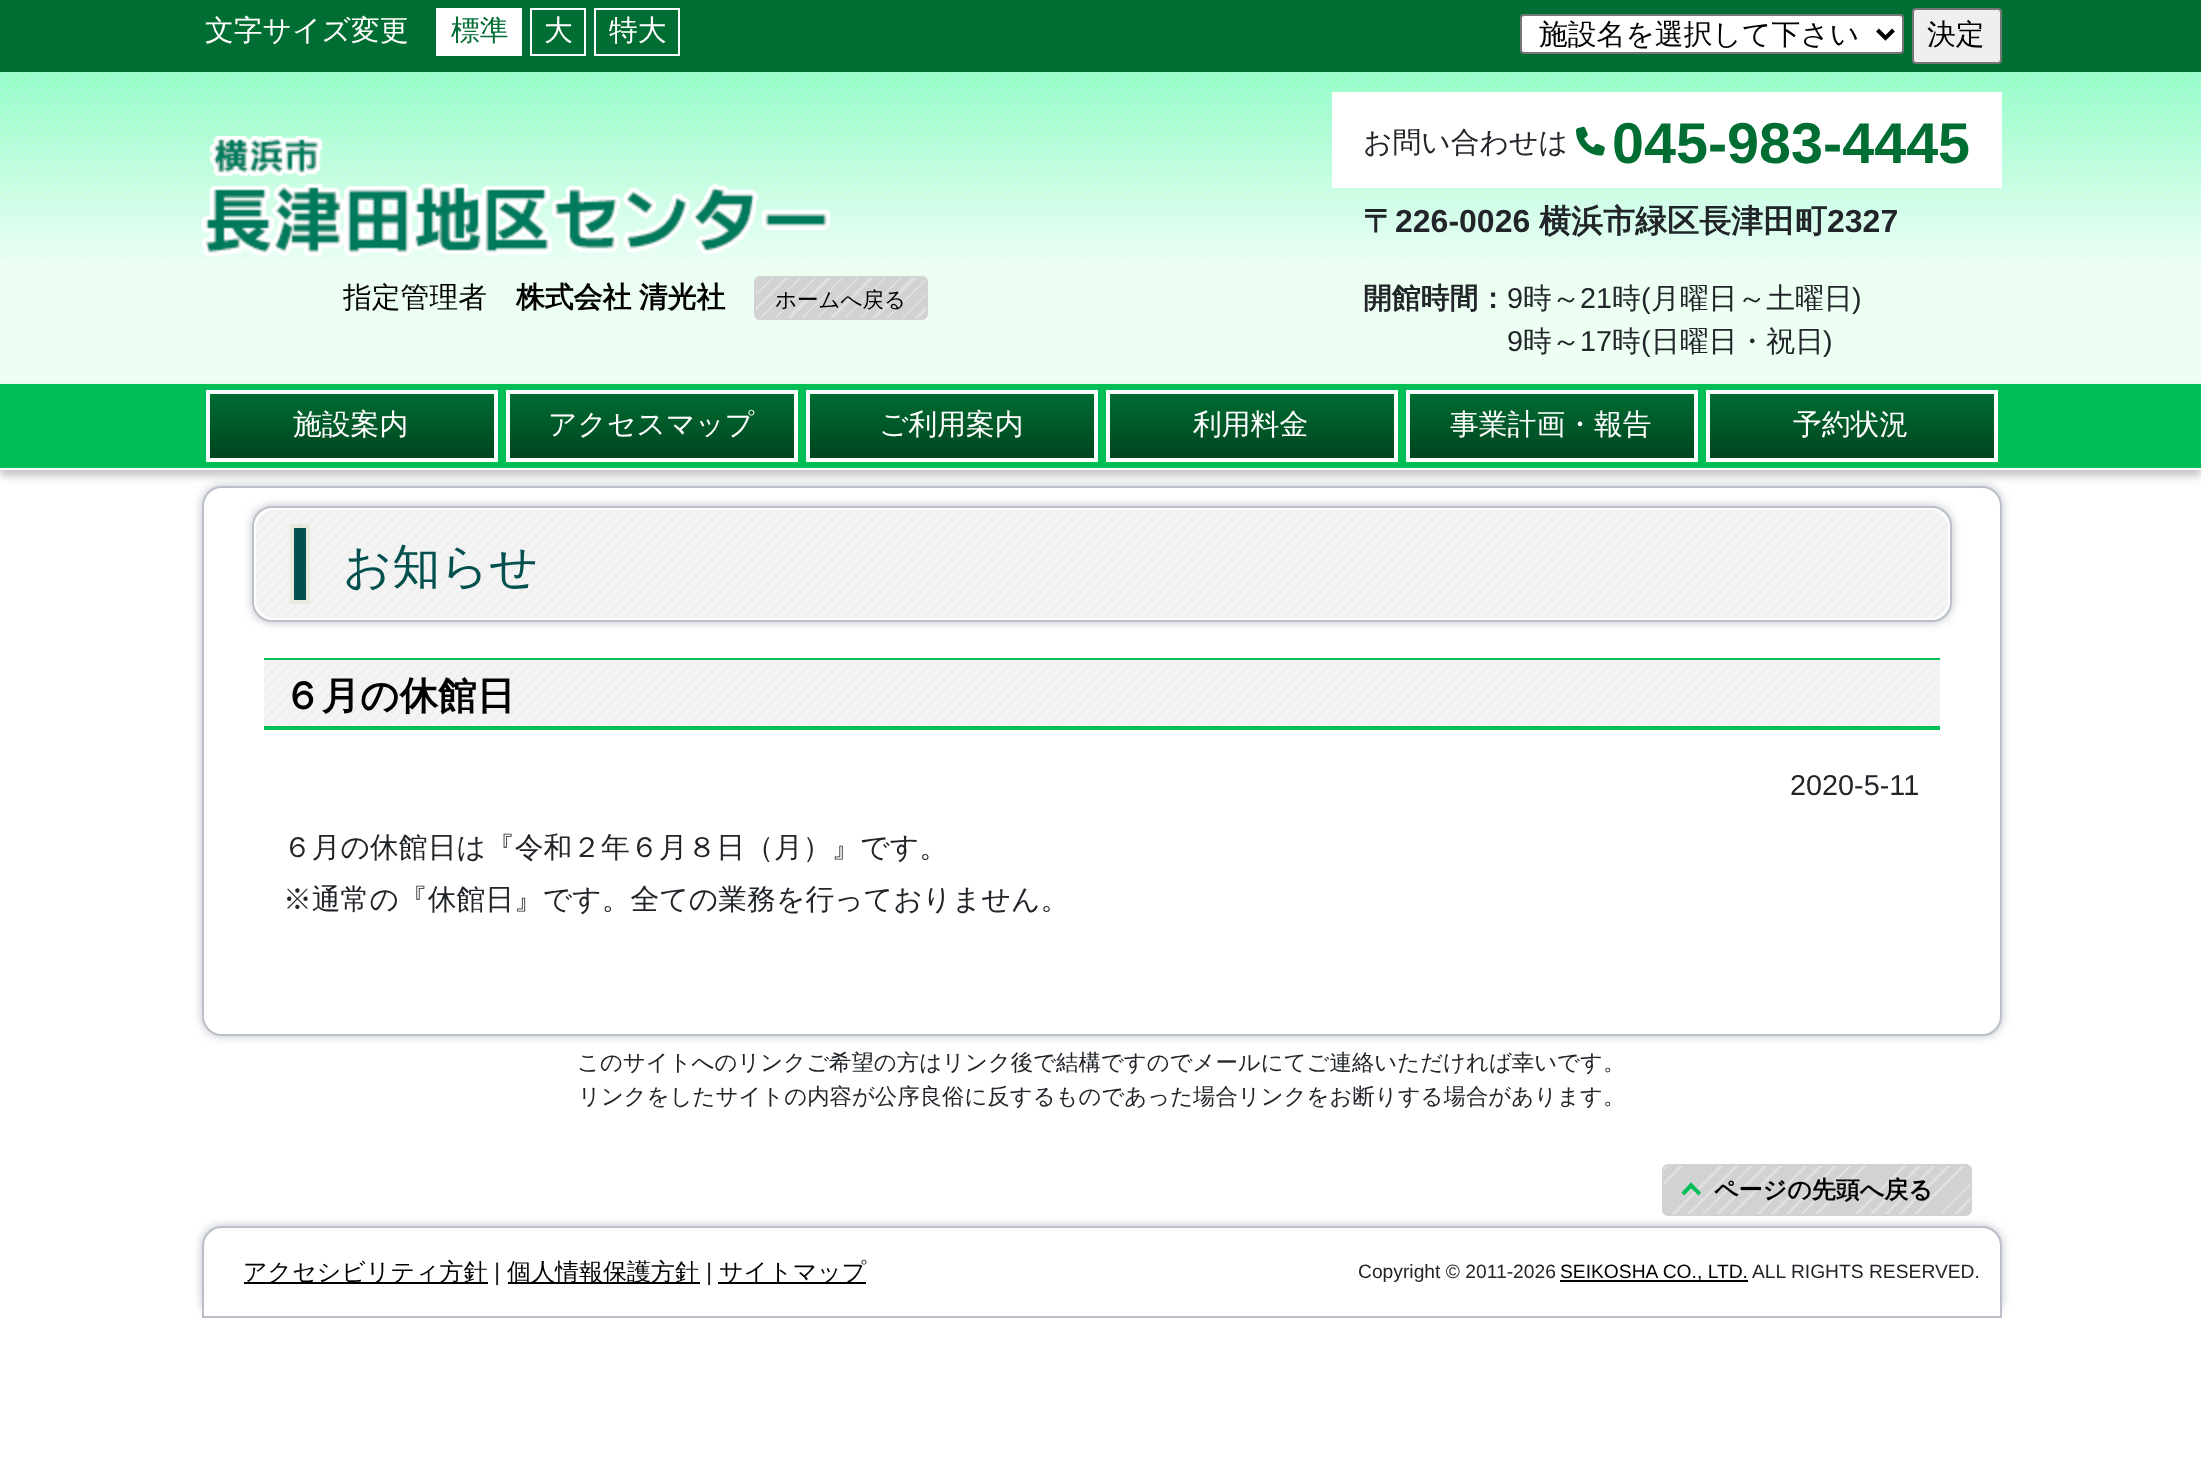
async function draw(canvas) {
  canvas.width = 2201
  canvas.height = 1457
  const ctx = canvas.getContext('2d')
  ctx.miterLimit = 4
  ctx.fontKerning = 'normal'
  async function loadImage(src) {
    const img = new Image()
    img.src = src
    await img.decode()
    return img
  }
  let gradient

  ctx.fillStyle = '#fff'
  ctx.fillRect(0, 0, 2201, 1457)
  ctx.fillStyle = '#edfef2'
  ctx.fillRect(0, 262, 2201, 122)
  ctx.drawImage(await loadImage('image0.png'), 0, 72, 2201, 190)
  ctx.fillStyle = '#006d32'
  ctx.fillRect(0, 0, 2201, 72)
  ctx.font = '500 28.8px WenQuanYi Zen Hei'
  ctx.fillStyle = '#fff'
  ctx.fillText('文字サイズ変更', 205, 40)
  ctx.fillRect(436, 8, 86, 48)
  ctx.fillStyle = '#006d32'
  ctx.fillText('標準', 451, 40)
  ctx.strokeStyle = '#fff'
  ctx.lineWidth = 2
  ctx.strokeRect(531, 9, 54, 46)
  ctx.fillStyle = '#fff'
  ctx.fillText('大', 544, 40)
  ctx.strokeRect(595, 9, 84, 46)
  ctx.fillText('特大', 609, 40)
  ctx.beginPath()
  ctx.roundRect(1521, 15, 382, 38, 3)
  ctx.fill()
  ctx.strokeStyle = '#767676'
  ctx.stroke()
  ctx.beginPath()
  ctx.moveTo(1877.5, 30)
  ctx.lineTo(1885.5, 38)
  ctx.lineTo(1893.5, 30)
  ctx.strokeStyle = '#000'
  ctx.lineWidth = 4
  ctx.stroke()
  ctx.fillStyle = '#000'
  ctx.fillText('施設名を選択して下さい', 1539, 44)
  ctx.fillStyle = '#efefef'
  ctx.beginPath()
  ctx.roundRect(1913, 9, 88, 54, 3)
  ctx.fill()
  ctx.strokeStyle = '#767676'
  ctx.lineWidth = 2
  ctx.stroke()
  ctx.fillStyle = '#000'
  ctx.fillText('決定', 1927, 44)
  ctx.drawImage(await loadImage('image1.png'), 202, 136, 629, 120)
  ctx.fillText('指定管理者', 343, 307)
  ctx.wordSpacing = '-1px'
  ctx.font = 'bold 28.8px WenQuanYi Zen Hei'
  ctx.fillText('株式会社 清光社', 516, 307)
  ctx.save()
  ctx.beginPath()
  ctx.roundRect(754, 276, 174, 44, 6)
  ctx.clip()
  gradient = ctx.createLinearGradient(619, 206, 725, 312)
  gradient.addColorStop(0, '#ecfbf0')
  gradient.addColorStop(0.01, '#ecfbf0')
  gradient.addColorStop(0.01, '#d2d2d2')
  gradient.addColorStop(0.07, '#d2d2d2')
  gradient.addColorStop(0.07, '#ecfbf0')
  gradient.addColorStop(0.08, '#ecfbf0')
  gradient.addColorStop(0.08, '#d2d2d2')
  gradient.addColorStop(0.13, '#d2d2d2')
  gradient.addColorStop(0.13, '#ecfbf0')
  gradient.addColorStop(0.15, '#ecfbf0')
  gradient.addColorStop(0.15, '#d2d2d2')
  gradient.addColorStop(0.2, '#d2d2d2')
  gradient.addColorStop(0.2, '#ecfbf0')
  gradient.addColorStop(0.21, '#ecfbf0')
  gradient.addColorStop(0.21, '#d2d2d2')
  gradient.addColorStop(0.27, '#d2d2d2')
  gradient.addColorStop(0.27, '#ecfbf0')
  gradient.addColorStop(0.28, '#ecfbf0')
  gradient.addColorStop(0.28, '#d2d2d2')
  gradient.addColorStop(0.33, '#d2d2d2')
  gradient.addColorStop(0.33, '#ecfbf0')
  gradient.addColorStop(0.35, '#ecfbf0')
  gradient.addColorStop(0.35, '#d2d2d2')
  gradient.addColorStop(0.4, '#d2d2d2')
  gradient.addColorStop(0.4, '#ecfbf0')
  gradient.addColorStop(0.41, '#ecfbf0')
  gradient.addColorStop(0.41, '#d2d2d2')
  gradient.addColorStop(0.47, '#d2d2d2')
  gradient.addColorStop(0.47, '#ecfbf0')
  gradient.addColorStop(0.48, '#ecfbf0')
  gradient.addColorStop(0.48, '#d2d2d2')
  gradient.addColorStop(0.53, '#d2d2d2')
  gradient.addColorStop(0.53, '#ecfbf0')
  gradient.addColorStop(0.55, '#ecfbf0')
  gradient.addColorStop(0.55, '#d2d2d2')
  gradient.addColorStop(0.6, '#d2d2d2')
  gradient.addColorStop(0.6, '#ecfbf0')
  gradient.addColorStop(0.61, '#ecfbf0')
  gradient.addColorStop(0.61, '#d2d2d2')
  gradient.addColorStop(0.67, '#d2d2d2')
  gradient.addColorStop(0.67, '#ecfbf0')
  gradient.addColorStop(0.68, '#ecfbf0')
  gradient.addColorStop(0.68, '#d2d2d2')
  gradient.addColorStop(0.73, '#d2d2d2')
  gradient.addColorStop(0.73, '#ecfbf0')
  gradient.addColorStop(0.75, '#ecfbf0')
  gradient.addColorStop(0.75, '#d2d2d2')
  gradient.addColorStop(0.8, '#d2d2d2')
  gradient.addColorStop(0.8, '#ecfbf0')
  gradient.addColorStop(0.81, '#ecfbf0')
  gradient.addColorStop(0.81, '#d2d2d2')
  gradient.addColorStop(0.87, '#d2d2d2')
  gradient.addColorStop(0.87, '#ecfbf0')
  gradient.addColorStop(0.88, '#ecfbf0')
  gradient.addColorStop(0.88, '#d2d2d2')
  gradient.addColorStop(0.93, '#d2d2d2')
  gradient.addColorStop(0.93, '#ecfbf0')
  gradient.addColorStop(0.95, '#ecfbf0')
  gradient.addColorStop(0.95, '#d2d2d2')
  gradient.addColorStop(1, '#d2d2d2')
  ctx.fillStyle = gradient
  ctx.fillRect(754, 277, 2, 1)
  gradient = ctx.createLinearGradient(959, 206, 1065, 312)
  gradient.addColorStop(0, '#ecfbf0')
  gradient.addColorStop(0.01, '#ecfbf0')
  gradient.addColorStop(0.01, '#d2d2d2')
  gradient.addColorStop(0.07, '#d2d2d2')
  gradient.addColorStop(0.07, '#ecfbf0')
  gradient.addColorStop(0.08, '#ecfbf0')
  gradient.addColorStop(0.08, '#d2d2d2')
  gradient.addColorStop(0.13, '#d2d2d2')
  gradient.addColorStop(0.13, '#ecfbf0')
  gradient.addColorStop(0.15, '#ecfbf0')
  gradient.addColorStop(0.15, '#d2d2d2')
  gradient.addColorStop(0.2, '#d2d2d2')
  gradient.addColorStop(0.2, '#ecfbf0')
  gradient.addColorStop(0.21, '#ecfbf0')
  gradient.addColorStop(0.21, '#d2d2d2')
  gradient.addColorStop(0.27, '#d2d2d2')
  gradient.addColorStop(0.27, '#ecfbf0')
  gradient.addColorStop(0.28, '#ecfbf0')
  gradient.addColorStop(0.28, '#d2d2d2')
  gradient.addColorStop(0.33, '#d2d2d2')
  gradient.addColorStop(0.33, '#ecfbf0')
  gradient.addColorStop(0.35, '#ecfbf0')
  gradient.addColorStop(0.35, '#d2d2d2')
  gradient.addColorStop(0.4, '#d2d2d2')
  gradient.addColorStop(0.4, '#ecfbf0')
  gradient.addColorStop(0.41, '#ecfbf0')
  gradient.addColorStop(0.41, '#d2d2d2')
  gradient.addColorStop(0.47, '#d2d2d2')
  gradient.addColorStop(0.47, '#ecfbf0')
  gradient.addColorStop(0.48, '#ecfbf0')
  gradient.addColorStop(0.48, '#d2d2d2')
  gradient.addColorStop(0.53, '#d2d2d2')
  gradient.addColorStop(0.53, '#ecfbf0')
  gradient.addColorStop(0.55, '#ecfbf0')
  gradient.addColorStop(0.55, '#d2d2d2')
  gradient.addColorStop(0.6, '#d2d2d2')
  gradient.addColorStop(0.6, '#ecfbf0')
  gradient.addColorStop(0.61, '#ecfbf0')
  gradient.addColorStop(0.61, '#d2d2d2')
  gradient.addColorStop(0.67, '#d2d2d2')
  gradient.addColorStop(0.67, '#ecfbf0')
  gradient.addColorStop(0.68, '#ecfbf0')
  gradient.addColorStop(0.68, '#d2d2d2')
  gradient.addColorStop(0.73, '#d2d2d2')
  gradient.addColorStop(0.73, '#ecfbf0')
  gradient.addColorStop(0.75, '#ecfbf0')
  gradient.addColorStop(0.75, '#d2d2d2')
  gradient.addColorStop(0.8, '#d2d2d2')
  gradient.addColorStop(0.8, '#ecfbf0')
  gradient.addColorStop(0.81, '#ecfbf0')
  gradient.addColorStop(0.81, '#d2d2d2')
  gradient.addColorStop(0.87, '#d2d2d2')
  gradient.addColorStop(0.87, '#ecfbf0')
  gradient.addColorStop(0.88, '#ecfbf0')
  gradient.addColorStop(0.88, '#d2d2d2')
  gradient.addColorStop(0.93, '#d2d2d2')
  gradient.addColorStop(0.93, '#ecfbf0')
  gradient.addColorStop(0.95, '#ecfbf0')
  gradient.addColorStop(0.95, '#d2d2d2')
  gradient.addColorStop(1, '#d2d2d2')
  ctx.fillStyle = gradient
  ctx.fillRect(926, 277, 2, 1)
  ctx.restore()
  gradient = ctx.createLinearGradient(789, 246, 895, 352)
  gradient.addColorStop(0, '#e0e0e0')
  gradient.addColorStop(0.01, '#e0e0e0')
  gradient.addColorStop(0.01, '#d2d2d2')
  gradient.addColorStop(0.07, '#d2d2d2')
  gradient.addColorStop(0.07, '#e0e0e0')
  gradient.addColorStop(0.08, '#e0e0e0')
  gradient.addColorStop(0.08, '#d2d2d2')
  gradient.addColorStop(0.13, '#d2d2d2')
  gradient.addColorStop(0.13, '#e0e0e0')
  gradient.addColorStop(0.15, '#e0e0e0')
  gradient.addColorStop(0.15, '#d2d2d2')
  gradient.addColorStop(0.2, '#d2d2d2')
  gradient.addColorStop(0.2, '#e0e0e0')
  gradient.addColorStop(0.21, '#e0e0e0')
  gradient.addColorStop(0.21, '#d2d2d2')
  gradient.addColorStop(0.27, '#d2d2d2')
  gradient.addColorStop(0.27, '#e0e0e0')
  gradient.addColorStop(0.28, '#e0e0e0')
  gradient.addColorStop(0.28, '#d2d2d2')
  gradient.addColorStop(0.33, '#d2d2d2')
  gradient.addColorStop(0.33, '#e0e0e0')
  gradient.addColorStop(0.35, '#e0e0e0')
  gradient.addColorStop(0.35, '#d2d2d2')
  gradient.addColorStop(0.4, '#d2d2d2')
  gradient.addColorStop(0.4, '#e0e0e0')
  gradient.addColorStop(0.41, '#e0e0e0')
  gradient.addColorStop(0.41, '#d2d2d2')
  gradient.addColorStop(0.47, '#d2d2d2')
  gradient.addColorStop(0.47, '#e0e0e0')
  gradient.addColorStop(0.48, '#e0e0e0')
  gradient.addColorStop(0.48, '#d2d2d2')
  gradient.addColorStop(0.53, '#d2d2d2')
  gradient.addColorStop(0.53, '#e0e0e0')
  gradient.addColorStop(0.55, '#e0e0e0')
  gradient.addColorStop(0.55, '#d2d2d2')
  gradient.addColorStop(0.6, '#d2d2d2')
  gradient.addColorStop(0.6, '#e0e0e0')
  gradient.addColorStop(0.61, '#e0e0e0')
  gradient.addColorStop(0.61, '#d2d2d2')
  gradient.addColorStop(0.67, '#d2d2d2')
  gradient.addColorStop(0.67, '#e0e0e0')
  gradient.addColorStop(0.68, '#e0e0e0')
  gradient.addColorStop(0.68, '#d2d2d2')
  gradient.addColorStop(0.73, '#d2d2d2')
  gradient.addColorStop(0.73, '#e0e0e0')
  gradient.addColorStop(0.75, '#e0e0e0')
  gradient.addColorStop(0.75, '#d2d2d2')
  gradient.addColorStop(0.8, '#d2d2d2')
  gradient.addColorStop(0.8, '#e0e0e0')
  gradient.addColorStop(0.81, '#e0e0e0')
  gradient.addColorStop(0.81, '#d2d2d2')
  gradient.addColorStop(0.87, '#d2d2d2')
  gradient.addColorStop(0.87, '#e0e0e0')
  gradient.addColorStop(0.88, '#e0e0e0')
  gradient.addColorStop(0.88, '#d2d2d2')
  gradient.addColorStop(0.93, '#d2d2d2')
  gradient.addColorStop(0.93, '#e0e0e0')
  gradient.addColorStop(0.95, '#e0e0e0')
  gradient.addColorStop(0.95, '#d2d2d2')
  gradient.addColorStop(1, '#d2d2d2')
  ctx.fillStyle = gradient
  ctx.fillRect(756, 278, 170, 40)
  ctx.save()
  ctx.beginPath()
  ctx.roundRect(754, 276, 174, 44, 6)
  ctx.clip()
  gradient = ctx.createLinearGradient(619, 286, 725, 392)
  gradient.addColorStop(0, '#ecfbf0')
  gradient.addColorStop(0.01, '#ecfbf0')
  gradient.addColorStop(0.01, '#d2d2d2')
  gradient.addColorStop(0.07, '#d2d2d2')
  gradient.addColorStop(0.07, '#ecfbf0')
  gradient.addColorStop(0.08, '#ecfbf0')
  gradient.addColorStop(0.08, '#d2d2d2')
  gradient.addColorStop(0.13, '#d2d2d2')
  gradient.addColorStop(0.13, '#ecfbf0')
  gradient.addColorStop(0.15, '#ecfbf0')
  gradient.addColorStop(0.15, '#d2d2d2')
  gradient.addColorStop(0.2, '#d2d2d2')
  gradient.addColorStop(0.2, '#ecfbf0')
  gradient.addColorStop(0.21, '#ecfbf0')
  gradient.addColorStop(0.21, '#d2d2d2')
  gradient.addColorStop(0.27, '#d2d2d2')
  gradient.addColorStop(0.27, '#ecfbf0')
  gradient.addColorStop(0.28, '#ecfbf0')
  gradient.addColorStop(0.28, '#d2d2d2')
  gradient.addColorStop(0.33, '#d2d2d2')
  gradient.addColorStop(0.33, '#ecfbf0')
  gradient.addColorStop(0.35, '#ecfbf0')
  gradient.addColorStop(0.35, '#d2d2d2')
  gradient.addColorStop(0.4, '#d2d2d2')
  gradient.addColorStop(0.4, '#ecfbf0')
  gradient.addColorStop(0.41, '#ecfbf0')
  gradient.addColorStop(0.41, '#d2d2d2')
  gradient.addColorStop(0.47, '#d2d2d2')
  gradient.addColorStop(0.47, '#ecfbf0')
  gradient.addColorStop(0.48, '#ecfbf0')
  gradient.addColorStop(0.48, '#d2d2d2')
  gradient.addColorStop(0.53, '#d2d2d2')
  gradient.addColorStop(0.53, '#ecfbf0')
  gradient.addColorStop(0.55, '#ecfbf0')
  gradient.addColorStop(0.55, '#d2d2d2')
  gradient.addColorStop(0.6, '#d2d2d2')
  gradient.addColorStop(0.6, '#ecfbf0')
  gradient.addColorStop(0.61, '#ecfbf0')
  gradient.addColorStop(0.61, '#d2d2d2')
  gradient.addColorStop(0.67, '#d2d2d2')
  gradient.addColorStop(0.67, '#ecfbf0')
  gradient.addColorStop(0.68, '#ecfbf0')
  gradient.addColorStop(0.68, '#d2d2d2')
  gradient.addColorStop(0.73, '#d2d2d2')
  gradient.addColorStop(0.73, '#ecfbf0')
  gradient.addColorStop(0.75, '#ecfbf0')
  gradient.addColorStop(0.75, '#d2d2d2')
  gradient.addColorStop(0.8, '#d2d2d2')
  gradient.addColorStop(0.8, '#ecfbf0')
  gradient.addColorStop(0.81, '#ecfbf0')
  gradient.addColorStop(0.81, '#d2d2d2')
  gradient.addColorStop(0.87, '#d2d2d2')
  gradient.addColorStop(0.87, '#ecfbf0')
  gradient.addColorStop(0.88, '#ecfbf0')
  gradient.addColorStop(0.88, '#d2d2d2')
  gradient.addColorStop(0.93, '#d2d2d2')
  gradient.addColorStop(0.93, '#ecfbf0')
  gradient.addColorStop(0.95, '#ecfbf0')
  gradient.addColorStop(0.95, '#d2d2d2')
  gradient.addColorStop(1, '#d2d2d2')
  ctx.fillStyle = gradient
  ctx.fillRect(754, 318, 2, 1)
  ctx.restore()
  ctx.beginPath()
  ctx.roundRect(755, 277, 172, 42, 5)
  ctx.strokeStyle = '#d2d2d2'
  ctx.stroke()
  ctx.wordSpacing = '0px'
  ctx.font = '500 21.5px WenQuanYi Zen Hei'
  ctx.fillStyle = '#000'
  ctx.fillText('ホームへ戻る', 775, 307)
  ctx.fillStyle = '#fff'
  ctx.fillRect(1332, 92, 670, 96)
  ctx.font = '500 28.8px WenQuanYi Zen Hei'
  ctx.fillStyle = '#212529'
  ctx.fillText('お問い合わせは', 1363, 152)
  ctx.drawImage(await loadImage('image2.png'), 1576, 126, 29, 30)
  ctx.font = 'bold 57.5px Liberation Sans'
  ctx.fillStyle = '#006d32'
  ctx.fillText('045-983-4445', 1612, 163)
  ctx.font = 'bold 32px WenQuanYi Zen Hei'
  ctx.fillStyle = '#212529'
  ctx.fillText('〒', 1363, 232)
  ctx.font = 'bold 32px Liberation Sans'
  ctx.fillText('226-0026', 1395, 232)
  ctx.font = 'bold 32px WenQuanYi Zen Hei'
  ctx.fillText('横浜市緑区長津田町', 1539, 232)
  ctx.font = 'bold 32px Liberation Sans'
  ctx.fillText('2327', 1827, 232)
  ctx.font = 'bold 28.8px WenQuanYi Zen Hei'
  ctx.fillText('開館時間：', 1363, 308)
  ctx.font = '28.8px Liberation Sans'
  ctx.fillText('9', 1507, 308)
  ctx.font = '500 28.8px WenQuanYi Zen Hei'
  ctx.fillText('時～', 1523, 308)
  ctx.font = '28.8px Liberation Sans'
  ctx.fillText('21', 1580, 308)
  ctx.font = '500 28.8px WenQuanYi Zen Hei'
  ctx.fillText('時', 1612, 308)
  ctx.font = '28.8px Liberation Sans'
  ctx.fillText('(', 1641, 308)
  ctx.font = '500 28.8px WenQuanYi Zen Hei'
  ctx.fillText('月曜日～土曜日', 1651, 308)
  ctx.font = '28.8px Liberation Sans'
  ctx.fillText(')', 1852, 308)
  ctx.fillText('9', 1507, 351)
  ctx.font = '500 28.8px WenQuanYi Zen Hei'
  ctx.fillText('時～', 1523, 351)
  ctx.font = '28.8px Liberation Sans'
  ctx.fillText('17', 1580, 351)
  ctx.font = '500 28.8px WenQuanYi Zen Hei'
  ctx.fillText('時', 1612, 351)
  ctx.font = '28.8px Liberation Sans'
  ctx.fillText('(', 1641, 351)
  ctx.font = '500 28.8px WenQuanYi Zen Hei'
  ctx.fillText('日曜日・祝日', 1651, 351)
  ctx.font = '28.8px Liberation Sans'
  ctx.fillText(')', 1823, 351)
  ctx.fillStyle = '#c3c4c4'
  ctx.filter = 'blur(4px)'
  ctx.beginPath()
  ctx.rect(0, 390, 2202, 86)
  ctx.fill()
  ctx.filter = 'none'
  ctx.fillStyle = '#00bf57'
  ctx.fillRect(0, 384, 2201, 84)
  ctx.fillStyle = '#fff'
  ctx.fillRect(0, 468, 2201, 2)
  gradient = ctx.createLinearGradient(352, 394, 352, 458)
  gradient.addColorStop(0, '#006d32')
  gradient.addColorStop(1, '#00441f')
  ctx.fillStyle = gradient
  ctx.fillRect(210, 394, 284, 64)
  ctx.strokeStyle = '#fff'
  ctx.lineWidth = 4
  ctx.strokeRect(208, 392, 288, 68)
  ctx.font = '500 28.8px WenQuanYi Zen Hei'
  ctx.fillStyle = '#fff'
  ctx.fillText('施設案内', 293, 434)
  gradient = ctx.createLinearGradient(652, 394, 652, 458)
  gradient.addColorStop(0, '#006d32')
  gradient.addColorStop(1, '#00441f')
  ctx.fillStyle = gradient
  ctx.fillRect(510, 394, 284, 64)
  ctx.strokeRect(508, 392, 288, 68)
  ctx.fillStyle = '#fff'
  ctx.fillText('アクセスマップ', 548, 434)
  gradient = ctx.createLinearGradient(952, 394, 952, 458)
  gradient.addColorStop(0, '#006d32')
  gradient.addColorStop(1, '#00441f')
  ctx.fillStyle = gradient
  ctx.fillRect(810, 394, 284, 64)
  ctx.strokeRect(808, 392, 288, 68)
  ctx.fillStyle = '#fff'
  ctx.fillText('ご利用案内', 879, 434)
  gradient = ctx.createLinearGradient(1252, 394, 1252, 458)
  gradient.addColorStop(0, '#006d32')
  gradient.addColorStop(1, '#00441f')
  ctx.fillStyle = gradient
  ctx.fillRect(1110, 394, 284, 64)
  ctx.strokeRect(1108, 392, 288, 68)
  ctx.fillStyle = '#fff'
  ctx.fillText('利用料金', 1193, 434)
  gradient = ctx.createLinearGradient(1552, 394, 1552, 458)
  gradient.addColorStop(0, '#006d32')
  gradient.addColorStop(1, '#00441f')
  ctx.fillStyle = gradient
  ctx.fillRect(1410, 394, 284, 64)
  ctx.strokeRect(1408, 392, 288, 68)
  ctx.fillStyle = '#fff'
  ctx.fillText('事業計画・報告', 1450, 434)
  gradient = ctx.createLinearGradient(1852, 394, 1852, 458)
  gradient.addColorStop(0, '#006d32')
  gradient.addColorStop(1, '#00441f')
  ctx.fillStyle = gradient
  ctx.fillRect(1710, 394, 284, 64)
  ctx.strokeRect(1708, 392, 288, 68)
  ctx.fillStyle = '#fff'
  ctx.fillText('予約状況', 1793, 434)
  ctx.fillStyle = '#bbbfc9'
  ctx.filter = 'blur(5px)'
  ctx.beginPath()
  ctx.roundRect(202, 486, 1800, 550, 20)
  ctx.fill()
  ctx.filter = 'none'
  ctx.fillStyle = '#fff'
  ctx.beginPath()
  ctx.roundRect(203, 487, 1798, 548, 19)
  ctx.fill()
  ctx.strokeStyle = '#bbbfc9'
  ctx.lineWidth = 2
  ctx.stroke()
  ctx.fillStyle = '#bbbfc9'
  ctx.filter = 'blur(5px)'
  ctx.beginPath()
  ctx.roundRect(252, 506, 1700, 116, 20)
  ctx.fill()
  ctx.filter = 'none'
  ctx.drawImage(await loadImage('image3.png'), 252, 506, 1700, 116)
  ctx.beginPath()
  ctx.roundRect(253, 507, 1698, 114, 19)
  ctx.stroke()
  ctx.beginPath()
  ctx.roundRect(255, 509, 1694, 110, 19)
  ctx.strokeStyle = '#fff'
  ctx.stroke()
  ctx.strokeStyle = '#e9e9de'
  ctx.lineWidth = 4
  ctx.strokeRect(292, 526, 16, 76)
  ctx.fillStyle = '#03504f'
  ctx.fillRect(294, 528, 12, 72)
  ctx.font = '500 48px WenQuanYi Zen Hei'
  ctx.fillText('お知らせ', 343, 583)
  ctx.drawImage(await loadImage('image4.png'), 264, 660, 1676, 66)
  ctx.fillStyle = '#00bf57'
  ctx.fillRect(264, 658, 1676, 2)
  ctx.fillRect(264, 726, 1676, 4)
  ctx.font = 'bold 38.5px WenQuanYi Zen Hei'
  ctx.fillStyle = '#000'
  ctx.fillText('６月の休館日', 283, 709)
  ctx.font = '28.8px Liberation Sans'
  ctx.fillStyle = '#212529'
  ctx.fillText('2020-5-11', 1790, 795)
  ctx.font = '500 28.8px WenQuanYi Zen Hei'
  ctx.fillText('６月の休館日は『令和２年６月８日（月）』です。', 283, 857)
  ctx.fillText('※通常の『休館日』です。全ての業務を行っておりません。', 283, 909)
  ctx.font = '500 22.4px WenQuanYi Zen Hei'
  ctx.fillText('このサイトへのリンクご希望の方はリンク後で結構ですのでメールにてご連絡いただければ幸いです。', 577, 1070)
  ctx.fillText('リンクをしたサイトの内容が公序良俗に反するものであった場合リンクをお断りする場合があります。', 578, 1104)
  ctx.save()
  ctx.beginPath()
  ctx.roundRect(1662, 1164, 310, 52, 6)
  ctx.clip()
  gradient = ctx.createLinearGradient(2035, 1054, 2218, 1237)
  gradient.addColorStop(0, '#fcfcfc')
  gradient.addColorStop(0.01, '#fcfcfc')
  gradient.addColorStop(0.01, '#d2d2d2')
  gradient.addColorStop(0.04, '#d2d2d2')
  gradient.addColorStop(0.04, '#fcfcfc')
  gradient.addColorStop(0.05, '#fcfcfc')
  gradient.addColorStop(0.05, '#d2d2d2')
  gradient.addColorStop(0.08, '#d2d2d2')
  gradient.addColorStop(0.08, '#fcfcfc')
  gradient.addColorStop(0.08, '#d2d2d2')
  gradient.addColorStop(0.12, '#d2d2d2')
  gradient.addColorStop(0.12, '#fcfcfc')
  gradient.addColorStop(0.12, '#d2d2d2')
  gradient.addColorStop(0.15, '#d2d2d2')
  gradient.addColorStop(0.15, '#fcfcfc')
  gradient.addColorStop(0.16, '#fcfcfc')
  gradient.addColorStop(0.16, '#d2d2d2')
  gradient.addColorStop(0.19, '#d2d2d2')
  gradient.addColorStop(0.19, '#fcfcfc')
  gradient.addColorStop(0.2, '#fcfcfc')
  gradient.addColorStop(0.2, '#d2d2d2')
  gradient.addColorStop(0.23, '#d2d2d2')
  gradient.addColorStop(0.23, '#fcfcfc')
  gradient.addColorStop(0.24, '#fcfcfc')
  gradient.addColorStop(0.24, '#d2d2d2')
  gradient.addColorStop(0.27, '#d2d2d2')
  gradient.addColorStop(0.27, '#fcfcfc')
  gradient.addColorStop(0.28, '#fcfcfc')
  gradient.addColorStop(0.28, '#d2d2d2')
  gradient.addColorStop(0.31, '#d2d2d2')
  gradient.addColorStop(0.31, '#fcfcfc')
  gradient.addColorStop(0.32, '#fcfcfc')
  gradient.addColorStop(0.32, '#d2d2d2')
  gradient.addColorStop(0.35, '#d2d2d2')
  gradient.addColorStop(0.35, '#fcfcfc')
  gradient.addColorStop(0.35, '#d2d2d2')
  gradient.addColorStop(0.38, '#d2d2d2')
  gradient.addColorStop(0.38, '#fcfcfc')
  gradient.addColorStop(0.39, '#fcfcfc')
  gradient.addColorStop(0.39, '#d2d2d2')
  gradient.addColorStop(0.42, '#d2d2d2')
  gradient.addColorStop(0.42, '#fcfcfc')
  gradient.addColorStop(0.43, '#fcfcfc')
  gradient.addColorStop(0.43, '#d2d2d2')
  gradient.addColorStop(0.46, '#d2d2d2')
  gradient.addColorStop(0.46, '#fcfcfc')
  gradient.addColorStop(0.47, '#fcfcfc')
  gradient.addColorStop(0.47, '#d2d2d2')
  gradient.addColorStop(0.5, '#d2d2d2')
  gradient.addColorStop(0.5, '#fcfcfc')
  gradient.addColorStop(0.51, '#fcfcfc')
  gradient.addColorStop(0.51, '#d2d2d2')
  gradient.addColorStop(0.54, '#d2d2d2')
  gradient.addColorStop(0.54, '#fcfcfc')
  gradient.addColorStop(0.55, '#fcfcfc')
  gradient.addColorStop(0.55, '#d2d2d2')
  gradient.addColorStop(0.58, '#d2d2d2')
  gradient.addColorStop(0.58, '#fcfcfc')
  gradient.addColorStop(0.58, '#d2d2d2')
  gradient.addColorStop(0.62, '#d2d2d2')
  gradient.addColorStop(0.62, '#fcfcfc')
  gradient.addColorStop(0.62, '#d2d2d2')
  gradient.addColorStop(0.65, '#d2d2d2')
  gradient.addColorStop(0.65, '#fcfcfc')
  gradient.addColorStop(0.66, '#fcfcfc')
  gradient.addColorStop(0.66, '#d2d2d2')
  gradient.addColorStop(0.69, '#d2d2d2')
  gradient.addColorStop(0.69, '#fcfcfc')
  gradient.addColorStop(0.7, '#fcfcfc')
  gradient.addColorStop(0.7, '#d2d2d2')
  gradient.addColorStop(0.73, '#d2d2d2')
  gradient.addColorStop(0.73, '#fcfcfc')
  gradient.addColorStop(0.74, '#fcfcfc')
  gradient.addColorStop(0.74, '#d2d2d2')
  gradient.addColorStop(0.77, '#d2d2d2')
  gradient.addColorStop(0.77, '#fcfcfc')
  gradient.addColorStop(0.78, '#fcfcfc')
  gradient.addColorStop(0.78, '#d2d2d2')
  gradient.addColorStop(0.81, '#d2d2d2')
  gradient.addColorStop(0.81, '#fcfcfc')
  gradient.addColorStop(0.82, '#fcfcfc')
  gradient.addColorStop(0.82, '#d2d2d2')
  gradient.addColorStop(0.85, '#d2d2d2')
  gradient.addColorStop(0.85, '#fcfcfc')
  gradient.addColorStop(0.85, '#d2d2d2')
  gradient.addColorStop(0.88, '#d2d2d2')
  gradient.addColorStop(0.88, '#fcfcfc')
  gradient.addColorStop(0.89, '#fcfcfc')
  gradient.addColorStop(0.89, '#d2d2d2')
  gradient.addColorStop(0.92, '#d2d2d2')
  gradient.addColorStop(0.92, '#fcfcfc')
  gradient.addColorStop(0.93, '#fcfcfc')
  gradient.addColorStop(0.93, '#d2d2d2')
  gradient.addColorStop(0.96, '#d2d2d2')
  gradient.addColorStop(0.96, '#fcfcfc')
  gradient.addColorStop(0.97, '#fcfcfc')
  gradient.addColorStop(0.97, '#d2d2d2')
  gradient.addColorStop(1, '#d2d2d2')
  ctx.fillStyle = gradient
  ctx.fillRect(1970, 1165, 2, 1)
  ctx.restore()
  ctx.save()
  ctx.beginPath()
  ctx.rect(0, 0, 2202, 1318)
  ctx.clip()
  ctx.fillStyle = '#bbbfc9'
  ctx.filter = 'blur(5px)'
  ctx.beginPath()
  ctx.roundRect(202, 1226, 1800, 92, 20)
  ctx.fill()
  ctx.filter = 'none'
  ctx.restore()
  gradient = ctx.createLinearGradient(1729, 1102, 1912, 1285)
  gradient.addColorStop(0, '#e0e0e0')
  gradient.addColorStop(0.01, '#e0e0e0')
  gradient.addColorStop(0.01, '#d2d2d2')
  gradient.addColorStop(0.04, '#d2d2d2')
  gradient.addColorStop(0.04, '#e0e0e0')
  gradient.addColorStop(0.05, '#e0e0e0')
  gradient.addColorStop(0.05, '#d2d2d2')
  gradient.addColorStop(0.08, '#d2d2d2')
  gradient.addColorStop(0.08, '#e0e0e0')
  gradient.addColorStop(0.08, '#d2d2d2')
  gradient.addColorStop(0.12, '#d2d2d2')
  gradient.addColorStop(0.12, '#e0e0e0')
  gradient.addColorStop(0.12, '#d2d2d2')
  gradient.addColorStop(0.15, '#d2d2d2')
  gradient.addColorStop(0.15, '#e0e0e0')
  gradient.addColorStop(0.16, '#e0e0e0')
  gradient.addColorStop(0.16, '#d2d2d2')
  gradient.addColorStop(0.19, '#d2d2d2')
  gradient.addColorStop(0.19, '#e0e0e0')
  gradient.addColorStop(0.2, '#e0e0e0')
  gradient.addColorStop(0.2, '#d2d2d2')
  gradient.addColorStop(0.23, '#d2d2d2')
  gradient.addColorStop(0.23, '#e0e0e0')
  gradient.addColorStop(0.24, '#e0e0e0')
  gradient.addColorStop(0.24, '#d2d2d2')
  gradient.addColorStop(0.27, '#d2d2d2')
  gradient.addColorStop(0.27, '#e0e0e0')
  gradient.addColorStop(0.28, '#e0e0e0')
  gradient.addColorStop(0.28, '#d2d2d2')
  gradient.addColorStop(0.31, '#d2d2d2')
  gradient.addColorStop(0.31, '#e0e0e0')
  gradient.addColorStop(0.32, '#e0e0e0')
  gradient.addColorStop(0.32, '#d2d2d2')
  gradient.addColorStop(0.35, '#d2d2d2')
  gradient.addColorStop(0.35, '#e0e0e0')
  gradient.addColorStop(0.35, '#d2d2d2')
  gradient.addColorStop(0.38, '#d2d2d2')
  gradient.addColorStop(0.38, '#e0e0e0')
  gradient.addColorStop(0.39, '#e0e0e0')
  gradient.addColorStop(0.39, '#d2d2d2')
  gradient.addColorStop(0.42, '#d2d2d2')
  gradient.addColorStop(0.42, '#e0e0e0')
  gradient.addColorStop(0.43, '#e0e0e0')
  gradient.addColorStop(0.43, '#d2d2d2')
  gradient.addColorStop(0.46, '#d2d2d2')
  gradient.addColorStop(0.46, '#e0e0e0')
  gradient.addColorStop(0.47, '#e0e0e0')
  gradient.addColorStop(0.47, '#d2d2d2')
  gradient.addColorStop(0.5, '#d2d2d2')
  gradient.addColorStop(0.5, '#e0e0e0')
  gradient.addColorStop(0.51, '#e0e0e0')
  gradient.addColorStop(0.51, '#d2d2d2')
  gradient.addColorStop(0.54, '#d2d2d2')
  gradient.addColorStop(0.54, '#e0e0e0')
  gradient.addColorStop(0.55, '#e0e0e0')
  gradient.addColorStop(0.55, '#d2d2d2')
  gradient.addColorStop(0.58, '#d2d2d2')
  gradient.addColorStop(0.58, '#e0e0e0')
  gradient.addColorStop(0.58, '#d2d2d2')
  gradient.addColorStop(0.62, '#d2d2d2')
  gradient.addColorStop(0.62, '#e0e0e0')
  gradient.addColorStop(0.62, '#d2d2d2')
  gradient.addColorStop(0.65, '#d2d2d2')
  gradient.addColorStop(0.65, '#e0e0e0')
  gradient.addColorStop(0.66, '#e0e0e0')
  gradient.addColorStop(0.66, '#d2d2d2')
  gradient.addColorStop(0.69, '#d2d2d2')
  gradient.addColorStop(0.69, '#e0e0e0')
  gradient.addColorStop(0.7, '#e0e0e0')
  gradient.addColorStop(0.7, '#d2d2d2')
  gradient.addColorStop(0.73, '#d2d2d2')
  gradient.addColorStop(0.73, '#e0e0e0')
  gradient.addColorStop(0.74, '#e0e0e0')
  gradient.addColorStop(0.74, '#d2d2d2')
  gradient.addColorStop(0.77, '#d2d2d2')
  gradient.addColorStop(0.77, '#e0e0e0')
  gradient.addColorStop(0.78, '#e0e0e0')
  gradient.addColorStop(0.78, '#d2d2d2')
  gradient.addColorStop(0.81, '#d2d2d2')
  gradient.addColorStop(0.81, '#e0e0e0')
  gradient.addColorStop(0.82, '#e0e0e0')
  gradient.addColorStop(0.82, '#d2d2d2')
  gradient.addColorStop(0.85, '#d2d2d2')
  gradient.addColorStop(0.85, '#e0e0e0')
  gradient.addColorStop(0.85, '#d2d2d2')
  gradient.addColorStop(0.88, '#d2d2d2')
  gradient.addColorStop(0.88, '#e0e0e0')
  gradient.addColorStop(0.89, '#e0e0e0')
  gradient.addColorStop(0.89, '#d2d2d2')
  gradient.addColorStop(0.92, '#d2d2d2')
  gradient.addColorStop(0.92, '#e0e0e0')
  gradient.addColorStop(0.93, '#e0e0e0')
  gradient.addColorStop(0.93, '#d2d2d2')
  gradient.addColorStop(0.96, '#d2d2d2')
  gradient.addColorStop(0.96, '#e0e0e0')
  gradient.addColorStop(0.97, '#e0e0e0')
  gradient.addColorStop(0.97, '#d2d2d2')
  gradient.addColorStop(1, '#d2d2d2')
  ctx.fillStyle = gradient
  ctx.fillRect(1664, 1166, 306, 48)
  ctx.save()
  ctx.beginPath()
  ctx.roundRect(1662, 1164, 310, 52, 6)
  ctx.clip()
  gradient = ctx.createLinearGradient(1423, 1150, 1606, 1333)
  gradient.addColorStop(0, '#fbfbfb')
  gradient.addColorStop(0.01, '#fbfbfb')
  gradient.addColorStop(0.01, '#d2d2d2')
  gradient.addColorStop(0.04, '#d2d2d2')
  gradient.addColorStop(0.04, '#fbfbfb')
  gradient.addColorStop(0.05, '#fbfbfb')
  gradient.addColorStop(0.05, '#d2d2d2')
  gradient.addColorStop(0.08, '#d2d2d2')
  gradient.addColorStop(0.08, '#fbfbfb')
  gradient.addColorStop(0.08, '#d2d2d2')
  gradient.addColorStop(0.12, '#d2d2d2')
  gradient.addColorStop(0.12, '#fbfbfb')
  gradient.addColorStop(0.12, '#d2d2d2')
  gradient.addColorStop(0.15, '#d2d2d2')
  gradient.addColorStop(0.15, '#fbfbfb')
  gradient.addColorStop(0.16, '#fbfbfb')
  gradient.addColorStop(0.16, '#d2d2d2')
  gradient.addColorStop(0.19, '#d2d2d2')
  gradient.addColorStop(0.19, '#fbfbfb')
  gradient.addColorStop(0.2, '#fbfbfb')
  gradient.addColorStop(0.2, '#d2d2d2')
  gradient.addColorStop(0.23, '#d2d2d2')
  gradient.addColorStop(0.23, '#fbfbfb')
  gradient.addColorStop(0.24, '#fbfbfb')
  gradient.addColorStop(0.24, '#d2d2d2')
  gradient.addColorStop(0.27, '#d2d2d2')
  gradient.addColorStop(0.27, '#fbfbfb')
  gradient.addColorStop(0.28, '#fbfbfb')
  gradient.addColorStop(0.28, '#d2d2d2')
  gradient.addColorStop(0.31, '#d2d2d2')
  gradient.addColorStop(0.31, '#fbfbfb')
  gradient.addColorStop(0.32, '#fbfbfb')
  gradient.addColorStop(0.32, '#d2d2d2')
  gradient.addColorStop(0.35, '#d2d2d2')
  gradient.addColorStop(0.35, '#fbfbfb')
  gradient.addColorStop(0.35, '#d2d2d2')
  gradient.addColorStop(0.38, '#d2d2d2')
  gradient.addColorStop(0.38, '#fbfbfb')
  gradient.addColorStop(0.39, '#fbfbfb')
  gradient.addColorStop(0.39, '#d2d2d2')
  gradient.addColorStop(0.42, '#d2d2d2')
  gradient.addColorStop(0.42, '#fbfbfb')
  gradient.addColorStop(0.43, '#fbfbfb')
  gradient.addColorStop(0.43, '#d2d2d2')
  gradient.addColorStop(0.46, '#d2d2d2')
  gradient.addColorStop(0.46, '#fbfbfb')
  gradient.addColorStop(0.47, '#fbfbfb')
  gradient.addColorStop(0.47, '#d2d2d2')
  gradient.addColorStop(0.5, '#d2d2d2')
  gradient.addColorStop(0.5, '#fbfbfb')
  gradient.addColorStop(0.51, '#fbfbfb')
  gradient.addColorStop(0.51, '#d2d2d2')
  gradient.addColorStop(0.54, '#d2d2d2')
  gradient.addColorStop(0.54, '#fbfbfb')
  gradient.addColorStop(0.55, '#fbfbfb')
  gradient.addColorStop(0.55, '#d2d2d2')
  gradient.addColorStop(0.58, '#d2d2d2')
  gradient.addColorStop(0.58, '#fbfbfb')
  gradient.addColorStop(0.58, '#d2d2d2')
  gradient.addColorStop(0.62, '#d2d2d2')
  gradient.addColorStop(0.62, '#fbfbfb')
  gradient.addColorStop(0.62, '#d2d2d2')
  gradient.addColorStop(0.65, '#d2d2d2')
  gradient.addColorStop(0.65, '#fbfbfb')
  gradient.addColorStop(0.66, '#fbfbfb')
  gradient.addColorStop(0.66, '#d2d2d2')
  gradient.addColorStop(0.69, '#d2d2d2')
  gradient.addColorStop(0.69, '#fbfbfb')
  gradient.addColorStop(0.7, '#fbfbfb')
  gradient.addColorStop(0.7, '#d2d2d2')
  gradient.addColorStop(0.73, '#d2d2d2')
  gradient.addColorStop(0.73, '#fbfbfb')
  gradient.addColorStop(0.74, '#fbfbfb')
  gradient.addColorStop(0.74, '#d2d2d2')
  gradient.addColorStop(0.77, '#d2d2d2')
  gradient.addColorStop(0.77, '#fbfbfb')
  gradient.addColorStop(0.78, '#fbfbfb')
  gradient.addColorStop(0.78, '#d2d2d2')
  gradient.addColorStop(0.81, '#d2d2d2')
  gradient.addColorStop(0.81, '#fbfbfb')
  gradient.addColorStop(0.82, '#fbfbfb')
  gradient.addColorStop(0.82, '#d2d2d2')
  gradient.addColorStop(0.85, '#d2d2d2')
  gradient.addColorStop(0.85, '#fbfbfb')
  gradient.addColorStop(0.85, '#d2d2d2')
  gradient.addColorStop(0.88, '#d2d2d2')
  gradient.addColorStop(0.88, '#fbfbfb')
  gradient.addColorStop(0.89, '#fbfbfb')
  gradient.addColorStop(0.89, '#d2d2d2')
  gradient.addColorStop(0.92, '#d2d2d2')
  gradient.addColorStop(0.92, '#fbfbfb')
  gradient.addColorStop(0.93, '#fbfbfb')
  gradient.addColorStop(0.93, '#d2d2d2')
  gradient.addColorStop(0.96, '#d2d2d2')
  gradient.addColorStop(0.96, '#fbfbfb')
  gradient.addColorStop(0.97, '#fbfbfb')
  gradient.addColorStop(0.97, '#d2d2d2')
  gradient.addColorStop(1, '#d2d2d2')
  ctx.fillStyle = gradient
  ctx.fillRect(1662, 1214, 2, 1)
  ctx.restore()
  ctx.beginPath()
  ctx.roundRect(1663, 1165, 308, 50, 5)
  ctx.strokeStyle = '#d2d2d2'
  ctx.lineWidth = 2
  ctx.stroke()
  ctx.fillStyle = '#00bf57'
  ctx.beginPath()
  ctx.moveTo(1681.5, 1192.5)
  ctx.lineTo(1691, 1182.5)
  ctx.lineTo(1694, 1185.5)
  ctx.lineTo(1684, 1195.5)
  ctx.closePath()
  ctx.fill()
  ctx.beginPath()
  ctx.moveTo(1688.5, 1185.5)
  ctx.lineTo(1691, 1182.5)
  ctx.lineTo(1701, 1192.5)
  ctx.lineTo(1698.5, 1195.5)
  ctx.closePath()
  ctx.fill()
  ctx.font = 'bold 24px WenQuanYi Zen Hei'
  ctx.fillStyle = '#000'
  ctx.fillText('ページの先頭へ戻る', 1714, 1198)
  ctx.fillStyle = '#fff'
  ctx.beginPath()
  ctx.roundRect(203, 1227, 1798, 90, [19, 19, 0, 0])
  ctx.fill()
  ctx.strokeStyle = '#bbbfc9'
  ctx.stroke()
  ctx.fillStyle = '#000'
  ctx.fillRect(244, 1282, 244, 2)
  ctx.font = '500 24px WenQuanYi Zen Hei'
  ctx.fillText('アクセシビリティ方針', 243, 1280)
  ctx.font = '24px Liberation Sans'
  ctx.fillStyle = '#212529'
  ctx.fillText('|', 494, 1280)
  ctx.fillStyle = '#000'
  ctx.fillRect(508, 1282, 192, 2)
  ctx.font = '500 24px WenQuanYi Zen Hei'
  ctx.fillText('個人情報保護方針', 507, 1280)
  ctx.font = '24px Liberation Sans'
  ctx.fillStyle = '#212529'
  ctx.fillText('|', 706, 1280)
  ctx.fillStyle = '#000'
  ctx.fillRect(718, 1282, 148, 2)
  ctx.font = '500 24px WenQuanYi Zen Hei'
  ctx.fillText('サイトマップ', 719, 1280)
  ctx.font = '19.25px Liberation Sans'
  ctx.fillStyle = '#212529'
  ctx.fillText('Copyright © 2011-2026', 1358, 1278)
  ctx.fillStyle = '#000'
  ctx.fillRect(1560, 1280, 188, 2)
  ctx.fillText('SEIKOSHA CO., LTD.', 1560, 1278)
  ctx.fillStyle = '#212529'
  ctx.fillText('ALL RIGHTS RESERVED.', 1752, 1278)
}

draw(document.querySelector('canvas'))
